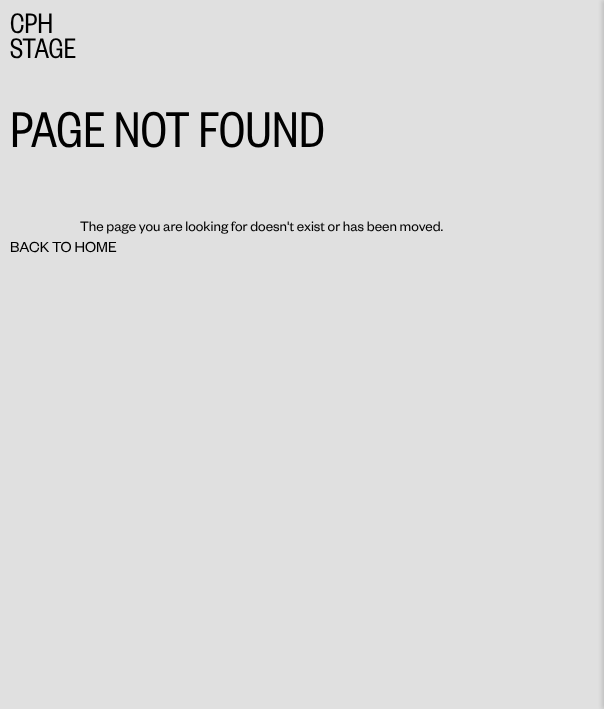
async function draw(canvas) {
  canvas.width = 604
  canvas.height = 709
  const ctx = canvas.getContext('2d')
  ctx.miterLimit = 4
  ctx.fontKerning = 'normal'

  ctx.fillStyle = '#e0e0e0'
  ctx.fillRect(0, 0, 604, 709)
  ctx.font = '31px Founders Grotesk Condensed'
  ctx.fillStyle = '#000'
  ctx.fillText('CPH', 10, 33)
  ctx.fillText('STAGE', 10, 58)
  ctx.fillStyle = '#00000026'
  ctx.filter = 'blur(2px)'
  ctx.beginPath()
  ctx.rect(602, 0, 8, 709)
  ctx.fill()
  ctx.filter = 'none'
  ctx.font = '55px Founders Grotesk Condensed'
  ctx.fillStyle = '#000'
  ctx.fillText('PAGE NOT FOUND', 10, 147)
  ctx.font = '15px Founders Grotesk'
  ctx.fillText('The page you are looking for doesn\'t exist or has been moved.', 80, 231)
  ctx.font = '16px Founders Grotesk'
  ctx.fillText('BACK TO HOME', 10, 252)
}

draw(document.querySelector('canvas'))
